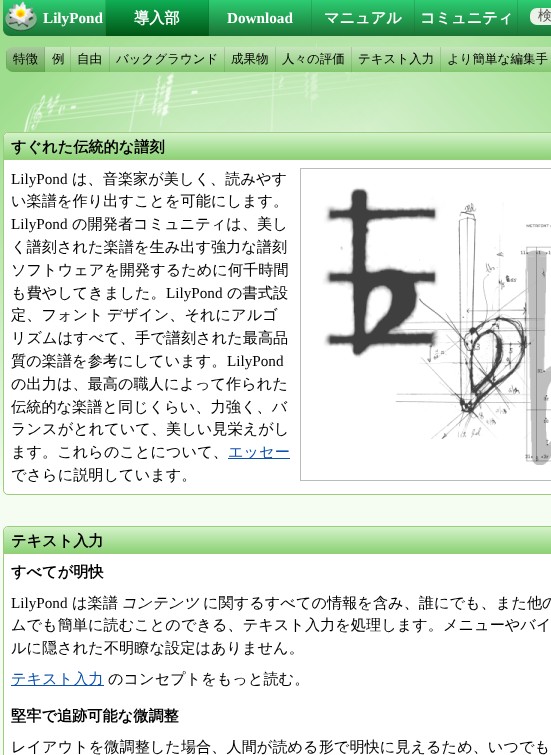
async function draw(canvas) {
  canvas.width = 551
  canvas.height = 755
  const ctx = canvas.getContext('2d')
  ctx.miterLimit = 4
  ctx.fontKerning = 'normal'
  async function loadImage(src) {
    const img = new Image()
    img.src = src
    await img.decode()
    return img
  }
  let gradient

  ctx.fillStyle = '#f5fcf2'
  ctx.fillRect(0, 0, 551, 755)
  ctx.drawImage(await loadImage('image0.png'), 0, 0, 551, 486)
  gradient = ctx.createLinearGradient(322, 36, 322, 0)
  gradient.addColorStop(0, '#197332')
  gradient.addColorStop(1, '#2dcd73')
  ctx.fillStyle = gradient
  ctx.beginPath()
  ctx.moveTo(3, 0)
  ctx.lineTo(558, 0)
  ctx.lineTo(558, 29)
  ctx.bezierCurveTo(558, 33, 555, 36, 551, 36)
  ctx.lineTo(10, 36)
  ctx.bezierCurveTo(6, 36, 3, 33, 3, 29)
  ctx.closePath()
  ctx.fill()
  ctx.fillStyle = '#ebf2e8'
  ctx.beginPath()
  ctx.roundRect(530, 8, 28, 17, 7)
  ctx.fill()
  ctx.font = '500 14px WenQuanYi Zen Hei'
  ctx.fillStyle = '#555'
  ctx.fillText('検', 538, 20)
  gradient = ctx.createLinearGradient(157, 36, 157, 0)
  gradient.addColorStop(0, '#005514')
  gradient.addColorStop(1, '#0faf55')
  ctx.fillStyle = gradient
  ctx.fillRect(106, 0, 103, 36)
  ctx.fillStyle = '#19642840'
  ctx.fillRect(208, 0, 1, 36)
  ctx.font = 'bold 15.2px WenQuanYi Zen Hei'
  ctx.fillStyle = '#fff'
  ctx.fillText('導入部', 134, 23)
  gradient = ctx.createLinearGradient(26, 72, 26, 47)
  gradient.addColorStop(0, '#64aa50')
  gradient.addColorStop(1, '#aac8a0')
  ctx.fillStyle = gradient
  ctx.beginPath()
  ctx.roundRect(6, 47, 39, 25, [7, 0, 0, 7])
  ctx.fill()
  ctx.fillStyle = '#55824640'
  ctx.fillRect(44, 47, 1, 25)
  ctx.fillRect(6, 51, 1, 18)
  ctx.font = '500 12.5px WenQuanYi Zen Hei'
  ctx.fillStyle = '#000'
  ctx.fillText('特徴', 13, 63)
  gradient = ctx.createLinearGradient(58, 72, 58, 47)
  gradient.addColorStop(0, '#82c86e')
  gradient.addColorStop(1, '#c8e6be')
  ctx.fillStyle = gradient
  ctx.fillRect(45, 47, 26, 25)
  ctx.fillStyle = '#55824640'
  ctx.fillRect(70, 47, 1, 25)
  ctx.fillStyle = '#000'
  ctx.fillText('例', 52, 63)
  gradient = ctx.createLinearGradient(90, 72, 90, 47)
  gradient.addColorStop(0, '#82c86e')
  gradient.addColorStop(1, '#c8e6be')
  ctx.fillStyle = gradient
  ctx.fillRect(71, 47, 39, 25)
  ctx.fillStyle = '#55824640'
  ctx.fillRect(109, 47, 1, 25)
  ctx.fillStyle = '#000'
  ctx.fillText('自由', 77, 63)
  gradient = ctx.createLinearGradient(167, 72, 167, 47)
  gradient.addColorStop(0, '#82c86e')
  gradient.addColorStop(1, '#c8e6be')
  ctx.fillStyle = gradient
  ctx.fillRect(110, 47, 115, 25)
  ctx.fillStyle = '#55824640'
  ctx.fillRect(224, 47, 1, 25)
  ctx.fillStyle = '#000'
  ctx.fillText('バックグラウンド', 116, 63)
  gradient = ctx.createLinearGradient(250, 72, 250, 47)
  gradient.addColorStop(0, '#82c86e')
  gradient.addColorStop(1, '#c8e6be')
  ctx.fillStyle = gradient
  ctx.fillRect(225, 47, 51, 25)
  ctx.fillStyle = '#55824640'
  ctx.fillRect(275, 47, 1, 25)
  ctx.fillStyle = '#000'
  ctx.fillText('成果物', 231, 63)
  gradient = ctx.createLinearGradient(314, 72, 314, 47)
  gradient.addColorStop(0, '#82c86e')
  gradient.addColorStop(1, '#c8e6be')
  ctx.fillStyle = gradient
  ctx.fillRect(276, 47, 76, 25)
  ctx.fillStyle = '#55824640'
  ctx.fillRect(351, 47, 1, 25)
  ctx.fillStyle = '#000'
  ctx.fillText('人々の評価', 282, 63)
  gradient = ctx.createLinearGradient(396, 72, 396, 47)
  gradient.addColorStop(0, '#82c86e')
  gradient.addColorStop(1, '#c8e6be')
  ctx.fillStyle = gradient
  ctx.fillRect(352, 47, 89, 25)
  ctx.fillStyle = '#55824640'
  ctx.fillRect(440, 47, 1, 25)
  ctx.fillStyle = '#000'
  ctx.fillText('テキスト入力', 358, 63)
  gradient = ctx.createLinearGradient(504, 72, 504, 47)
  gradient.addColorStop(0, '#82c86e')
  gradient.addColorStop(1, '#c8e6be')
  ctx.fillStyle = gradient
  ctx.fillRect(441, 47, 110, 25)
  ctx.fillStyle = '#000'
  ctx.fillText('より簡単な編集手', 447, 63)
  ctx.fillStyle = '#19642840'
  ctx.fillRect(105, 0, 1, 36)
  ctx.drawImage(await loadImage('image1.png'), 5, 1, 32, 31)
  ctx.font = 'bold 15.2px Liberation Serif'
  ctx.fillStyle = '#fff'
  ctx.fillText('LilyPond', 43, 23)
  ctx.fillStyle = '#19642840'
  ctx.fillRect(311, 0, 1, 36)
  ctx.fillStyle = '#fff'
  ctx.fillText('Download', 227, 23)
  ctx.fillStyle = '#19642840'
  ctx.fillRect(414, 0, 1, 36)
  ctx.font = 'bold 15.2px WenQuanYi Zen Hei'
  ctx.fillStyle = '#fff'
  ctx.fillText('マニュアル', 324, 23)
  ctx.fillStyle = '#19642840'
  ctx.fillRect(517, 0, 1, 36)
  ctx.fillStyle = '#fff'
  ctx.fillText('コミュニティ', 420, 23)
  ctx.beginPath()
  ctx.roundRect(3.5, 132.5, 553, 362, 4.5)
  ctx.fill()
  ctx.strokeStyle = '#9ccc7c'
  ctx.stroke()
  gradient = ctx.createLinearGradient(322, 159, 322, 133)
  gradient.addColorStop(0, '#8cd276')
  gradient.addColorStop(1, '#d4f2c9')
  ctx.fillStyle = gradient
  ctx.beginPath()
  ctx.moveTo(9, 133)
  ctx.lineTo(551, 133)
  ctx.bezierCurveTo(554, 133, 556, 135, 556, 138)
  ctx.lineTo(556, 159)
  ctx.lineTo(4, 159)
  ctx.lineTo(4, 138)
  ctx.bezierCurveTo(4, 135, 6, 133, 9, 133)
  ctx.closePath()
  ctx.fill()
  ctx.fillStyle = '#9ccc7c'
  ctx.fillRect(4, 159, 547, 1)
  ctx.fillStyle = '#000'
  ctx.fillText('すぐれた伝統的な譜刻', 11, 152)
  ctx.font = '15.2px Liberation Serif'
  ctx.fillText('LilyPond', 11, 184)
  ctx.font = '500 15.2px WenQuanYi Zen Hei'
  ctx.fillText('は、音楽家が美しく、読みやす', 72, 184)
  ctx.fillText('い楽譜を作り出すことを可能にします。', 11, 206)
  ctx.font = '15.2px Liberation Serif'
  ctx.fillText('LilyPond', 11, 229)
  ctx.font = '500 15.2px WenQuanYi Zen Hei'
  ctx.fillText('の開発者コミュニティは、美し', 72, 229)
  ctx.fillText('く譜刻された楽譜を生み出す強力な譜刻', 11, 252)
  ctx.fillText('ソフトウェアを開発するために何千時間', 11, 275)
  ctx.fillText('も費やしてきました。', 11, 298)
  ctx.font = '15.2px Liberation Serif'
  ctx.fillText('LilyPond', 166, 298)
  ctx.font = '500 15.2px WenQuanYi Zen Hei'
  ctx.fillText('の書式設', 227, 298)
  ctx.wordSpacing = '-1px'
  ctx.fillText('定、フォント デザイン、それにアルゴ', 11, 320)
  ctx.wordSpacing = '0px'
  ctx.fillText('リズムはすべて、手で譜刻された最高品', 11, 343)
  ctx.fillText('質の楽譜を参考にしています。', 11, 366)
  ctx.font = '15.2px Liberation Serif'
  ctx.fillText('LilyPond', 227, 366)
  ctx.font = '500 15.2px WenQuanYi Zen Hei'
  ctx.fillText('の出力は、最高の職人によって作られた', 11, 389)
  ctx.fillText('伝統的な楽譜と同じくらい、力強く、バ', 11, 412)
  ctx.fillText('ランスがとれていて、美しい見栄えがし', 11, 434)
  ctx.fillText('ます。これらのことについて、', 11, 457)
  ctx.fillStyle = '#0c51ab'
  ctx.fillRect(228, 458, 62, 1)
  ctx.fillText('エッセー', 228, 457)
  ctx.fillStyle = '#000'
  ctx.fillText('でさらに説明しています。', 11, 480)
  ctx.strokeStyle = '#bbb'
  ctx.strokeRect(300.5, 168.5, 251, 312)
  ctx.drawImage(await loadImage('image2.png'), 322, 187, 229, 278)
  ctx.fillStyle = '#fff'
  ctx.beginPath()
  ctx.roundRect(3.5, 526.5, 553, 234, 4.5)
  ctx.fill()
  ctx.strokeStyle = '#9ccc7c'
  ctx.stroke()
  gradient = ctx.createLinearGradient(322, 553, 322, 527)
  gradient.addColorStop(0, '#8cd276')
  gradient.addColorStop(1, '#d4f2c9')
  ctx.fillStyle = gradient
  ctx.beginPath()
  ctx.moveTo(9, 527)
  ctx.lineTo(551, 527)
  ctx.bezierCurveTo(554, 527, 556, 529, 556, 532)
  ctx.lineTo(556, 553)
  ctx.lineTo(4, 553)
  ctx.lineTo(4, 532)
  ctx.bezierCurveTo(4, 529, 6, 527, 9, 527)
  ctx.closePath()
  ctx.fill()
  ctx.fillStyle = '#9ccc7c'
  ctx.fillRect(4, 553, 547, 1)
  ctx.font = 'bold 15.2px WenQuanYi Zen Hei'
  ctx.fillStyle = '#000'
  ctx.fillText('テキスト入力', 11, 546)
  ctx.fillText('すべてが明快', 11, 577)
  ctx.font = '15.2px Liberation Serif'
  ctx.fillText('LilyPond', 11, 608)
  ctx.font = '500 15.2px WenQuanYi Zen Hei'
  ctx.fillText('は楽譜', 72, 608)
  ctx.font = 'italic 500 15.2px WenQuanYi Zen Hei'
  ctx.fillText('コンテンツ', 121, 608)
  ctx.font = '500 15.2px WenQuanYi Zen Hei'
  ctx.fillText('に関するすべての情報を含み、誰にでも、また他の', 203, 608)
  ctx.fillText('ムでも簡単に読むことのできる、テキスト入力を処理します。メニューやバイ', 11, 630)
  ctx.fillText('ルに隠された不明瞭な設定はありません。', 11, 653)
  ctx.fillStyle = '#0c51ab'
  ctx.fillRect(11, 685, 93, 1)
  ctx.fillText('テキスト入力', 11, 684)
  ctx.fillStyle = '#000'
  ctx.fillText('のコンセプトをもっと読む。', 108, 684)
  ctx.font = 'bold 15.2px WenQuanYi Zen Hei'
  ctx.fillText('堅牢で追跡可能な微調整', 11, 721)
  ctx.font = '500 15.2px WenQuanYi Zen Hei'
  ctx.fillText('レイアウトを微調整した場合、人間が読める形で明快に見えるため、いつでも', 11, 752)
}

draw(document.querySelector('canvas'))
